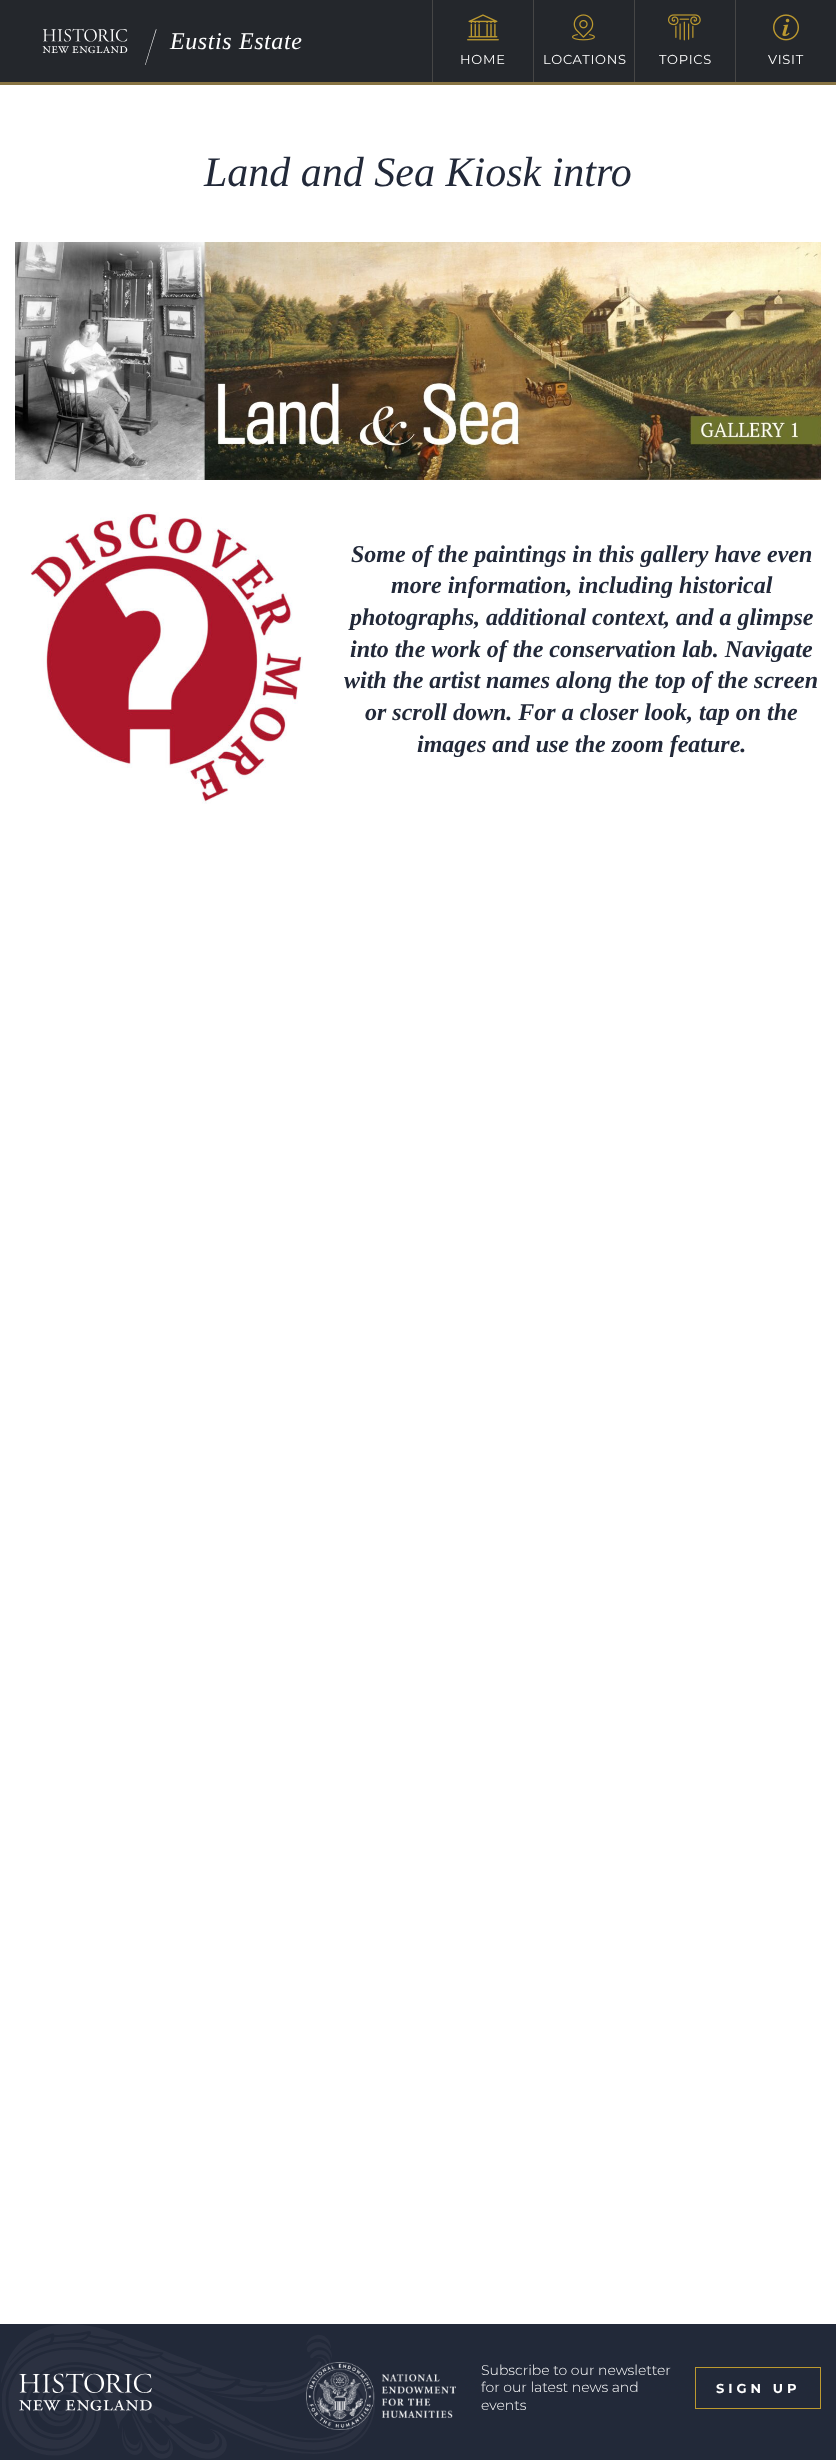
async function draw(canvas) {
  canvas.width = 836
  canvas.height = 2460
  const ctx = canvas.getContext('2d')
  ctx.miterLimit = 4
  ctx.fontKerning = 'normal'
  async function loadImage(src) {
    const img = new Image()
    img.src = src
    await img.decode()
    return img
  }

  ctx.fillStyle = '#fff'
  ctx.fillRect(0, 0, 836, 2460)
  ctx.fillStyle = '#24272c'
  ctx.fillRect(0, 0, 836, 82)
  ctx.fillStyle = '#887443'
  ctx.fillRect(0, 82, 836, 3)
  ctx.drawImage(await loadImage('image0.png'), 42, 28, 86, 26)
  ctx.fillStyle = '#fff'
  ctx.beginPath()
  ctx.moveTo(156, 29)
  ctx.lineTo(156.5, 29.5)
  ctx.lineTo(145.5, 65)
  ctx.lineTo(145, 65)
  ctx.closePath()
  ctx.fill()
  ctx.letterSpacing = '0.6px'
  ctx.font = 'italic 24px Liberation Serif'
  ctx.fillText('Eustis Estate', 170, 49)
  ctx.fillStyle = '#464646'
  ctx.fillRect(432, 0, 1, 82)
  ctx.drawImage(await loadImage('image1.png'), 467, 14, 32, 27)
  ctx.letterSpacing = '0.75px'
  ctx.font = '13px Montserrat'
  ctx.fillStyle = '#fff'
  ctx.fillText('HOME', 460, 64)
  ctx.fillStyle = '#464646'
  ctx.fillRect(533, 0, 1, 82)
  ctx.drawImage(await loadImage('image2.png'), 572, 14, 23, 27)
  ctx.fillStyle = '#fff'
  ctx.fillText('LOCATIONS', 543, 64)
  ctx.fillStyle = '#464646'
  ctx.fillRect(634, 0, 1, 82)
  ctx.drawImage(await loadImage('image3.png'), 668, 14, 33, 27)
  ctx.fillStyle = '#fff'
  ctx.fillText('TOPICS', 659, 64)
  ctx.fillStyle = '#464646'
  ctx.fillRect(735, 0, 1, 82)
  ctx.drawImage(await loadImage('image4.png'), 773, 14, 26, 27)
  ctx.fillStyle = '#fff'
  ctx.fillText('VISIT', 768, 64)
  ctx.letterSpacing = '0px'
  ctx.font = 'italic 42px Liberation Serif'
  ctx.fillStyle = '#222939'
  ctx.fillText('Land and Sea Kiosk intro', 204, 186)
  ctx.drawImage(await loadImage('image5.png'), 15, 242, 806, 238)
  ctx.drawImage(await loadImage('image6.png'), 30, 512, 273, 292)
  ctx.font = 'italic bold 24px Liberation Serif'
  ctx.fillText('Some of the paintings in this gallery have even', 351, 562)
  ctx.fillText('more information, including historical', 391, 593)
  ctx.fillText('photographs, additional context, and a glimpse', 350, 625)
  ctx.fillText('into the work of the conservation lab. Navigate', 350, 657)
  ctx.fillText('with the artist names along the top of the screen', 344, 688)
  ctx.fillText('or scroll down. For a closer look, tap on the', 365, 720)
  ctx.fillText('images and use the zoom feature.', 417, 752)
  ctx.fillRect(0, 2324, 836, 136)
  ctx.drawImage(await loadImage('image7.png'), 1, 2324, 374, 135)
  ctx.drawImage(await loadImage('image8.png'), 19, 2373, 133, 38)
  ctx.drawImage(await loadImage('image9.png'), 306, 2362, 150, 68)
  ctx.font = '300 14px Montserrat'
  ctx.fillStyle = '#fff'
  ctx.fillText('Subscribe to our newsletter', 481, 2375)
  ctx.fillText('for our latest news and', 481, 2392)
  ctx.fillText('events', 481, 2410)
  ctx.strokeStyle = '#bc992f'
  ctx.strokeRect(695.5, 2367.5, 125, 41)
  ctx.letterSpacing = '4px'
  ctx.font = 'bold 13px Montserrat'
  ctx.fillText('SIGN UP', 716, 2393)
}

draw(document.querySelector('canvas'))
